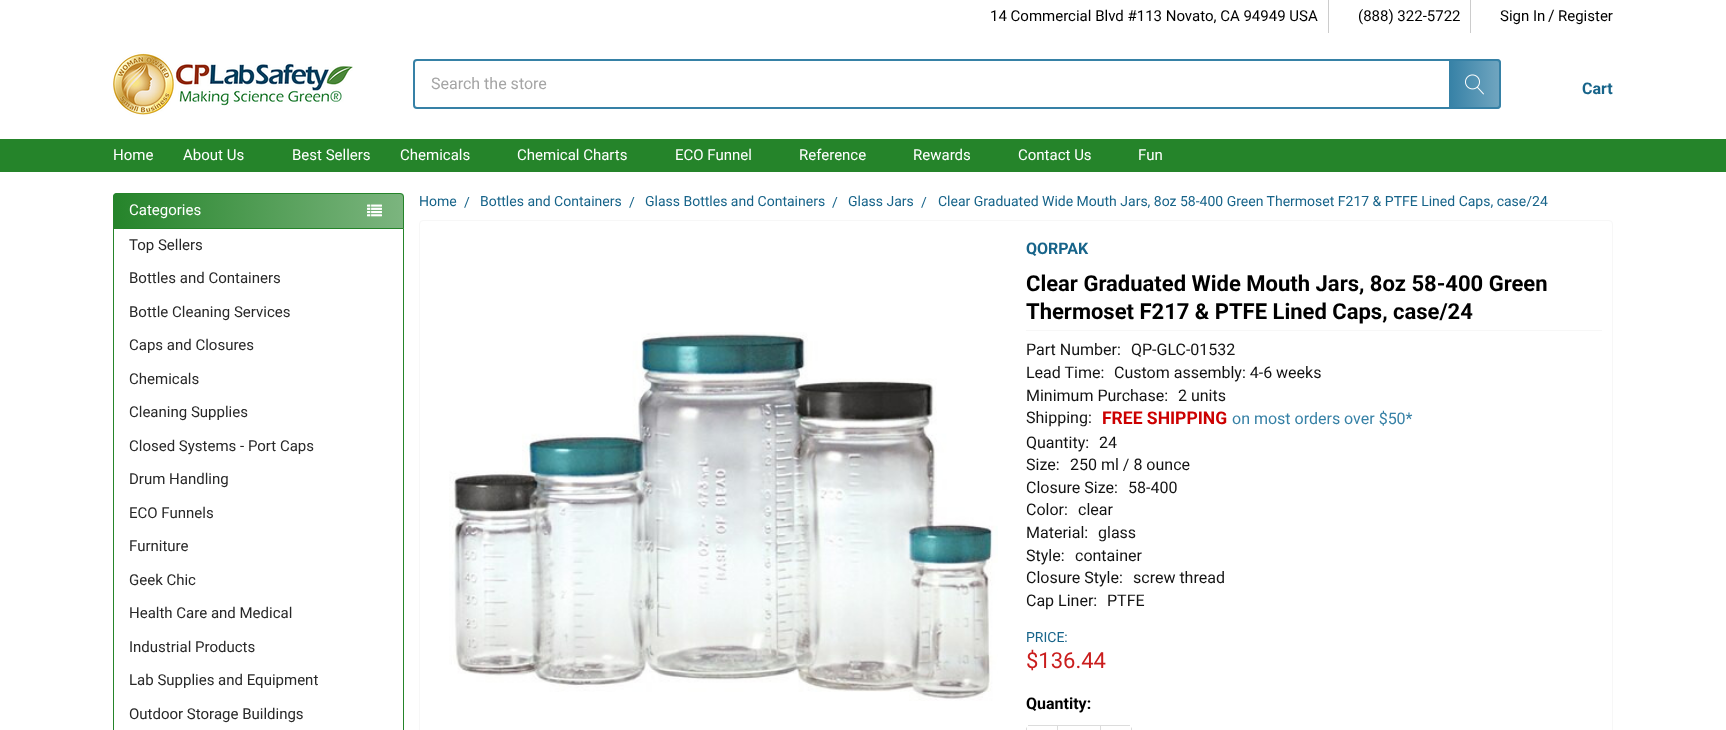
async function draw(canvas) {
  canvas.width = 1726
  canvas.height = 730
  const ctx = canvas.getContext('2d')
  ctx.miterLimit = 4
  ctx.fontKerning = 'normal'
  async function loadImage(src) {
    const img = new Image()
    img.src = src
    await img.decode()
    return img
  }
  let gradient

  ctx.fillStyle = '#fff'
  ctx.fillRect(0, 0, 1726, 730)
  ctx.font = '15px Roboto'
  ctx.fillStyle = '#000'
  ctx.fillText('14 Commercial Blvd #113 Novato, CA 94949 USA', 990, 21)
  ctx.fillStyle = '#ccc'
  ctx.fillRect(1328, 0, 1, 33)
  ctx.fillStyle = '#000'
  ctx.fillText('(888) 322-5722', 1358, 21)
  ctx.fillStyle = '#ccc'
  ctx.fillRect(1470, 0, 1, 33)
  ctx.fillStyle = '#000'
  ctx.fillText('Sign In', 1500, 21)
  ctx.font = '16px Roboto'
  ctx.fillText('/', 1548, 21)
  ctx.font = '15px Roboto'
  ctx.fillText('Register', 1558, 21)
  ctx.drawImage(await loadImage('image0.png'), 113, 52, 240, 63)
  ctx.beginPath()
  ctx.roundRect(414, 60, 1086, 48, 3)
  ctx.strokeStyle = '#3681a6'
  ctx.lineWidth = 2
  ctx.stroke()
  ctx.font = '16px Roboto'
  ctx.fillStyle = '#a5a5a5'
  ctx.fillText('Search the store', 431, 89)
  gradient = ctx.createLinearGradient(1449, 84, 1501, 84)
  gradient.addColorStop(0, '#3681a6')
  gradient.addColorStop(1, '#3681a6b3')
  ctx.fillStyle = gradient
  ctx.beginPath()
  ctx.roundRect(1449, 59, 52, 50, [0, 4, 4, 0])
  ctx.fill()
  ctx.drawImage(await loadImage('image1.png'), 1465, 74, 19, 21)
  ctx.font = 'bold 16px Roboto'
  ctx.fillStyle = '#17648a'
  ctx.fillText('Cart', 1582, 94)
  ctx.fillStyle = '#25842a'
  ctx.fillRect(0, 139, 1726, 33)
  ctx.font = '15px Roboto'
  ctx.fillStyle = '#fff'
  ctx.fillText('Home', 113, 160)
  ctx.fillText('About Us', 183, 160)
  ctx.fillText('Best Sellers', 292, 160)
  ctx.fillText('Chemicals', 400, 160)
  ctx.fillText('Chemical Charts', 517, 160)
  ctx.fillText('ECO Funnel', 675, 160)
  ctx.fillText('Reference', 799, 160)
  ctx.fillText('Rewards', 913, 160)
  ctx.fillText('Contact Us', 1018, 160)
  ctx.fillText('Fun', 1138, 160)
  gradient = ctx.createLinearGradient(113, 530, 404, 530)
  gradient.addColorStop(0, '#25842a')
  gradient.addColorStop(1, '#7cb57f')
  ctx.fillStyle = gradient
  ctx.beginPath()
  ctx.roundRect(113, 193, 291, 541, 4)
  ctx.fill()
  ctx.beginPath()
  ctx.roundRect(113.5, 193.5, 290, 35, [3.5, 3.5, 0, 0])
  ctx.strokeStyle = '#25842a'
  ctx.lineWidth = 1
  ctx.stroke()
  ctx.fillStyle = '#fff'
  ctx.fillText('Categories', 129, 215)
  ctx.drawImage(await loadImage('image2.png'), 367, 204, 15, 13)
  ctx.fillRect(114, 229, 289, 501)
  ctx.fillStyle = '#25842a'
  ctx.beginPath()
  ctx.moveTo(113, 229)
  ctx.lineTo(404, 229)
  ctx.lineTo(404, 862)
  ctx.bezierCurveTo(404, 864, 402, 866, 400, 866)
  ctx.lineTo(117, 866)
  ctx.bezierCurveTo(115, 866, 113, 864, 113, 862)
  ctx.closePath()
  ctx.moveTo(114, 229)
  ctx.lineTo(403, 229)
  ctx.lineTo(403, 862)
  ctx.bezierCurveTo(403, 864, 402, 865, 400, 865)
  ctx.lineTo(117, 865)
  ctx.bezierCurveTo(115, 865, 114, 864, 114, 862)
  ctx.closePath()
  ctx.fill('evenodd')
  ctx.fillStyle = '#282828'
  ctx.fillText('Top Sellers', 129, 250)
  ctx.fillText('Bottles and Containers', 129, 283)
  ctx.fillText('Bottle Cleaning Services', 129, 317)
  ctx.fillText('Caps and Closures', 129, 350)
  ctx.fillText('Chemicals', 129, 384)
  ctx.fillText('Cleaning Supplies', 129, 417)
  ctx.fillText('Closed Systems - Port Caps', 129, 451)
  ctx.fillText('Drum Handling', 129, 484)
  ctx.fillText('ECO Funnels', 129, 518)
  ctx.fillText('Furniture', 129, 551)
  ctx.fillText('Geek Chic', 129, 585)
  ctx.fillText('Health Care and Medical', 129, 618)
  ctx.fillText('Industrial Products', 129, 652)
  ctx.fillText('Lab Supplies and Equipment', 129, 685)
  ctx.fillText('Outdoor Storage Buildings', 129, 719)
  ctx.font = '14px Roboto'
  ctx.fillStyle = '#17648a'
  ctx.fillText('Home', 419, 206)
  ctx.fillText('/', 464, 207)
  ctx.fillText('Bottles and Containers', 480, 206)
  ctx.fillText('/', 629, 207)
  ctx.fillText('Glass Bottles and Containers', 645, 206)
  ctx.fillText('/', 832, 207)
  ctx.fillText('Glass Jars', 848, 206)
  ctx.fillText('/', 921, 207)
  ctx.fillText('Clear Graduated Wide Mouth Jars, 8oz 58-400 Green Thermoset F217 & PTFE Lined Caps, case/24', 938, 206)
  ctx.beginPath()
  ctx.roundRect(419.5, 220.5, 1193, 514, 3.5)
  ctx.strokeStyle = '#f7f7f7'
  ctx.stroke()
  ctx.drawImage(await loadImage('image3.png'), 449, 332, 549, 369)
  ctx.font = 'bold 16px Roboto'
  ctx.fillText('QORPAK', 1026, 254)
  ctx.font = 'bold 22px Roboto'
  ctx.fillStyle = '#000'
  ctx.fillText('Clear Graduated Wide Mouth Jars, 8oz 58-400 Green', 1026, 291)
  ctx.fillText('Thermoset F217 & PTFE Lined Caps, case/24', 1026, 319)
  ctx.fillStyle = '#f7f7f7'
  ctx.fillRect(1026, 330, 576, 1)
  ctx.font = '16px Roboto'
  ctx.fillStyle = '#131313'
  ctx.fillText('Part Number:', 1026, 355)
  ctx.fillText('QP-GLC-01532', 1131, 355)
  ctx.fillText('Lead Time:', 1026, 378)
  ctx.fillText('Custom assembly: 4-6 weeks', 1114, 378)
  ctx.fillText('Minimum Purchase:', 1026, 401)
  ctx.fillText('2 units', 1178, 401)
  ctx.fillText('Shipping:', 1026, 423)
  ctx.font = 'bold 17.5px Roboto'
  ctx.fillStyle = '#c00'
  ctx.fillText('FREE SHIPPING', 1102, 424)
  ctx.font = '16px Roboto'
  ctx.fillStyle = '#3681a6'
  ctx.fillText('on most orders over $50*', 1232, 424)
  ctx.fillStyle = '#131313'
  ctx.fillText('Quantity:', 1026, 448)
  ctx.fillText('24', 1099, 448)
  ctx.fillText('Size:', 1026, 470)
  ctx.fillText('250 ml / 8 ounce', 1070, 470)
  ctx.fillText('Closure Size:', 1026, 493)
  ctx.fillText('58-400', 1128, 493)
  ctx.fillText('Color:', 1026, 515)
  ctx.fillText('clear', 1078, 515)
  ctx.fillText('Material:', 1026, 538)
  ctx.fillText('glass', 1098, 538)
  ctx.fillText('Style:', 1026, 561)
  ctx.fillText('container', 1075, 561)
  ctx.fillText('Closure Style:', 1026, 583)
  ctx.fillText('screw thread', 1133, 583)
  ctx.fillText('Cap Liner:', 1026, 606)
  ctx.fillText('PTFE', 1107, 606)
  ctx.font = '14px Roboto'
  ctx.fillStyle = '#17648a'
  ctx.fillText('PRICE:', 1026, 642)
  ctx.font = '22px Roboto'
  ctx.fillStyle = '#ca1d1d'
  ctx.fillText('$136.44', 1026, 668)
  ctx.font = 'bold 16px Roboto'
  ctx.fillStyle = '#000'
  ctx.fillText('Quantity:', 1026, 709)
  ctx.fillStyle = '#dcdcdc'
  ctx.fillRect(1028, 725, 102, 1)
  ctx.fillRect(1057, 726, 1, 4)
  ctx.beginPath()
  ctx.moveTo(1026, 729)
  ctx.lineTo(1026, 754)
  ctx.bezierCurveTo(1026, 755, 1026.5, 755.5, 1027, 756)
  ctx.lineTo(1027, 727)
  ctx.bezierCurveTo(1026.5, 727.5, 1026, 728, 1026, 729)
  ctx.closePath()
  ctx.fill()
  ctx.beginPath()
  ctx.moveTo(1132, 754)
  ctx.lineTo(1132, 729)
  ctx.bezierCurveTo(1132, 728, 1131.5, 727.5, 1131, 727)
  ctx.lineTo(1131, 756)
  ctx.bezierCurveTo(1131.5, 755.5, 1132, 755, 1132, 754)
  ctx.closePath()
  ctx.fill()
  ctx.fillRect(1100, 726, 1, 4)
}

draw(document.querySelector('canvas'))
